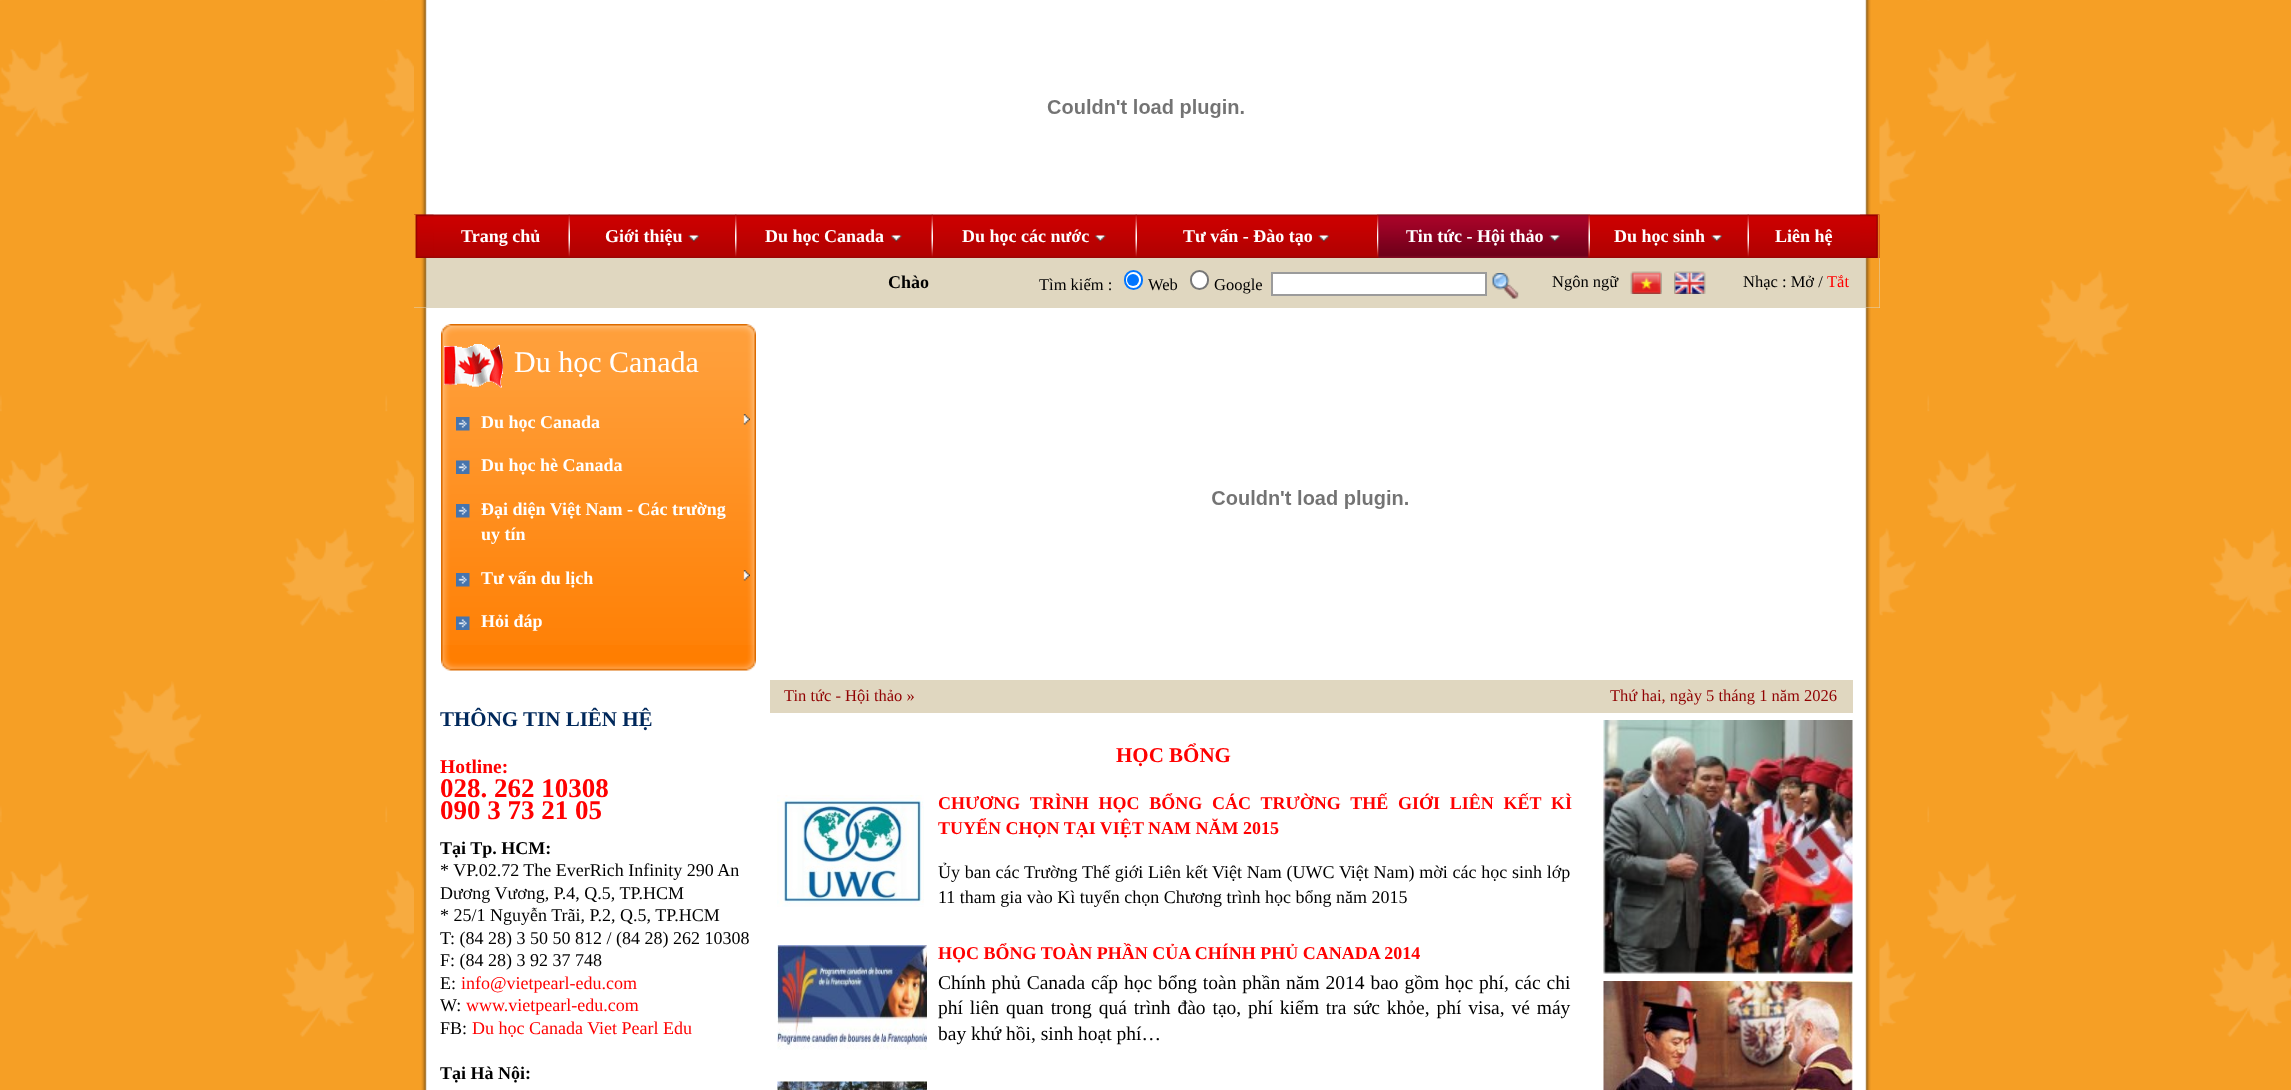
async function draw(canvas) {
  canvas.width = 2291
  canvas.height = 1090
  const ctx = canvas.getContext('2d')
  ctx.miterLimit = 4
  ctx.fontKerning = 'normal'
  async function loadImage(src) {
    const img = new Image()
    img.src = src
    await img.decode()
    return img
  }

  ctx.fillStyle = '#fff'
  ctx.fillRect(0, 0, 2291, 1090)
  ctx.drawImage(await loadImage('image0.png'), 0, 0, 2291, 1090)
  ctx.drawImage(await loadImage('image1.png'), 414, 0, 1466, 1090)
  ctx.drawImage(await loadImage('image2.png'), 1047, 99, 197, 19)
  ctx.drawImage(await loadImage('image3.png'), 414, 214, 1466, 44)
  ctx.drawImage(await loadImage('image4.png'), 414, 214, 20, 44)
  ctx.font = 'bold 18px Liberation Serif'
  ctx.fillText('Trang chủ', 461, 242)
  ctx.drawImage(await loadImage('image5.png'), 568, 214, 2, 43)
  ctx.fillText('Giới thiệu', 605, 242)
  ctx.drawImage(await loadImage('image6.png'), 688, 235, 11, 7)
  ctx.drawImage(await loadImage('image7.png'), 735, 214, 2, 43)
  ctx.fillText('Du học Canada', 765, 242)
  ctx.drawImage(await loadImage('image8.png'), 891, 235, 11, 7)
  ctx.drawImage(await loadImage('image5.png'), 931, 214, 2, 43)
  ctx.fillText('Du học các nước', 962, 242)
  ctx.drawImage(await loadImage('image9.png'), 1095, 235, 11, 7)
  ctx.drawImage(await loadImage('image5.png'), 1135, 214, 2, 43)
  ctx.fillText('Tư vấn - Đào tạo', 1183, 242)
  ctx.drawImage(await loadImage('image6.png'), 1318, 235, 11, 7)
  ctx.drawImage(await loadImage('image7.png'), 1377, 214, 2, 43)
  ctx.drawImage(await loadImage('image10.png'), 1378, 214, 211, 44)
  ctx.fillText('Tin tức - Hội thảo', 1406, 242)
  ctx.drawImage(await loadImage('image11.png'), 1549, 235, 11, 7)
  ctx.drawImage(await loadImage('image12.png'), 1588, 214, 2, 44)
  ctx.fillText('Du học sinh', 1614, 242)
  ctx.drawImage(await loadImage('image13.png'), 1711, 235, 11, 7)
  ctx.drawImage(await loadImage('image5.png'), 1747, 214, 2, 43)
  ctx.fillText('Liên hệ', 1775, 242)
  ctx.drawImage(await loadImage('image14.png'), 1860, 214, 20, 44)
  ctx.fillStyle = '#e0d7c0'
  ctx.fillRect(414, 258, 1466, 50)
  ctx.drawImage(await loadImage('image15.png'), 414, 258, 13, 50)
  ctx.fillStyle = '#000'
  ctx.fillText('Chào', 888, 288)
  ctx.font = '16.5px Liberation Serif'
  ctx.fillText('Tìm kiếm :', 1039, 290)
  ctx.fillStyle = '#fff'
  ctx.beginPath()
  ctx.roundRect(1125, 271, 17, 18, 8.5)
  ctx.fill()
  ctx.strokeStyle = '#0075ff'
  ctx.lineWidth = 2
  ctx.stroke()
  ctx.fillStyle = '#0075ff'
  ctx.beginPath()
  ctx.arc(1133, 280, 6, 0, 2 * Math.PI)
  ctx.fill()
  ctx.fillStyle = '#000'
  ctx.fillText('Web', 1148, 290)
  ctx.fillStyle = '#fff'
  ctx.beginPath()
  ctx.roundRect(1191, 271, 17, 18, 8.5)
  ctx.fill()
  ctx.strokeStyle = '#767676'
  ctx.stroke()
  ctx.fillStyle = '#000'
  ctx.fillText('Google', 1214, 290)
  ctx.fillStyle = '#fff'
  ctx.beginPath()
  ctx.rect(1272, 273, 214, 22)
  ctx.fill()
  ctx.strokeStyle = '#9b9b9b'
  ctx.stroke()
  ctx.drawImage(await loadImage('image16.png'), 1492, 273, 27, 26)
  ctx.fillStyle = '#000'
  ctx.fillText('Ngôn ngữ', 1552, 287)
  ctx.drawImage(await loadImage('image17.png'), 1630, 271, 32, 23)
  ctx.drawImage(await loadImage('image18.png'), 1674, 271, 32, 23)
  ctx.fillText('Nhạc : Mở /', 1743, 287)
  ctx.fillStyle = '#ff0101'
  ctx.fillText('Tắt', 1827, 287)
  ctx.drawImage(await loadImage('image19.png'), 1865, 258, 15, 50)
  ctx.drawImage(await loadImage('image20.png'), 441, 324, 315, 66)
  ctx.drawImage(await loadImage('image21.png'), 444, 344, 59, 44)
  ctx.font = '30px Liberation Serif'
  ctx.fillStyle = '#fff'
  ctx.fillText('Du học Canada', 514, 372)
  ctx.drawImage(await loadImage('image22.png'), 441, 390, 315, 255)
  ctx.drawImage(await loadImage('image23.png'), 456, 417, 14, 14)
  ctx.font = 'bold 18px Liberation Serif'
  ctx.fillText('Du học Canada', 481, 428)
  ctx.drawImage(await loadImage('image24.png'), 743, 414, 7, 11)
  ctx.drawImage(await loadImage('image25.png'), 456, 460, 14, 14)
  ctx.fillText('Du học hè Canada', 481, 471)
  ctx.drawImage(await loadImage('image26.png'), 456, 504, 14, 14)
  ctx.fillText('Đại diện Việt Nam - Các trường', 481, 515)
  ctx.fillText('uy tín', 481, 540)
  ctx.drawImage(await loadImage('image27.png'), 456, 573, 14, 14)
  ctx.fillText('Tư vấn du lịch', 481, 584)
  ctx.drawImage(await loadImage('image28.png'), 743, 570, 7, 11)
  ctx.drawImage(await loadImage('image29.png'), 456, 616, 14, 14)
  ctx.fillText('Hỏi đáp', 481, 627)
  ctx.drawImage(await loadImage('image30.png'), 441, 645, 315, 26)
  ctx.font = 'bold 21px Liberation Serif'
  ctx.fillStyle = '#00285b'
  ctx.fillText('THÔNG TIN LIÊN HỆ', 440, 726)
  ctx.font = 'bold 19.5px Liberation Serif'
  ctx.fillStyle = '#ff0101'
  ctx.fillText('Hotline:', 440, 773)
  ctx.font = 'bold 27px Liberation Serif'
  ctx.fillText('028. 262 10308', 440, 797)
  ctx.fillText('090 3 73 21 05', 440, 819)
  ctx.font = 'bold 18px Liberation Serif'
  ctx.fillStyle = '#000'
  ctx.fillText('Tại Tp. HCM:', 440, 854)
  ctx.font = '18px Liberation Serif'
  ctx.fillText('* VP.02.72 The EverRich Infinity 290 An', 440, 876)
  ctx.fillText('Dương Vương, P.4, Q.5, TP.HCM', 440, 899)
  ctx.fillText('* 25/1 Nguyễn Trãi, P.2, Q.5, TP.HCM', 440, 921)
  ctx.fillText('T: (84 28) 3 50 50 812 / (84 28) 262 10308', 440, 944)
  ctx.fillText('F: (84 28) 3 92 37 748', 440, 966)
  ctx.fillText('E:', 440, 989)
  ctx.fillStyle = '#ff0101'
  ctx.fillText('info@vietpearl-edu.com', 461, 989)
  ctx.fillStyle = '#000'
  ctx.fillText('W:', 440, 1011)
  ctx.fillStyle = '#ff0101'
  ctx.fillText('www.vietpearl-edu.com', 466, 1011)
  ctx.fillStyle = '#000'
  ctx.fillText('FB:', 440, 1034)
  ctx.fillStyle = '#ff0101'
  ctx.fillText('Du học Canada Viet Pearl Edu', 472, 1034)
  ctx.font = 'bold 18px Liberation Serif'
  ctx.fillStyle = '#000'
  ctx.fillText('Tại Hà Nội:', 440, 1079)
  ctx.drawImage(await loadImage('image31.png'), 1212, 490, 196, 19)
  ctx.fillStyle = '#e0d7c0'
  ctx.fillRect(770, 680, 1083, 33)
  ctx.font = '16.5px Liberation Serif'
  ctx.fillStyle = '#900202'
  ctx.fillText('Tin tức - Hội thảo »', 784, 701)
  ctx.fillText('Thứ hai, ngày 5 tháng 1 năm 2026', 1610, 701)
  ctx.font = 'bold 21px Liberation Serif'
  ctx.fillStyle = '#ff0101'
  ctx.fillText('HỌC BỔNG', 1116, 762)
  ctx.drawImage(await loadImage('image32.png'), 777, 795, 147, 112)
  ctx.wordSpacing = '5.25px'
  ctx.font = 'bold 18px Liberation Serif'
  ctx.fillText('CHƯƠNG TRÌNH HỌC BỔNG CÁC TRƯỜNG THẾ GIỚI LIÊN KẾT KÌ', 938, 809)
  ctx.wordSpacing = '0px'
  ctx.fillText('TUYỂN CHỌN TẠI VIỆT NAM NĂM 2015', 938, 834)
  ctx.wordSpacing = '0.25px'
  ctx.font = '18px Liberation Serif'
  ctx.fillStyle = '#000'
  ctx.fillText('Ủy ban các Trường Thế giới Liên kết Việt Nam (UWC Việt Nam) mời các học sinh lớp', 938, 878)
  ctx.wordSpacing = '0px'
  ctx.fillText('11 tham gia vào Kì tuyển chọn Chương trình học bổng năm 2015', 938, 903)
  ctx.drawImage(await loadImage('image33.png'), 777, 945, 150, 105)
  ctx.font = 'bold 18px Liberation Serif'
  ctx.fillStyle = '#ff0101'
  ctx.fillText('HỌC BỔNG TOÀN PHẦN CỦA CHÍNH PHỦ CANADA 2014', 938, 959)
  ctx.wordSpacing = '1px'
  ctx.font = '19.5px Liberation Serif'
  ctx.fillStyle = '#000'
  ctx.fillText('Chính phủ Canada cấp học bổng toàn phần năm 2014 bao gồm học phí, các chi', 938, 989)
  ctx.wordSpacing = '2px'
  ctx.fillText('phí liên quan trong quá trình đào tạo, phí kiểm tra sức khỏe, phí visa, vé máy', 938, 1014)
  ctx.wordSpacing = '0px'
  ctx.fillText('bay khứ hồi, sinh hoạt phí…', 938, 1040)
  ctx.drawImage(await loadImage('image34.png'), 777, 1081, 150, 9)
  ctx.drawImage(await loadImage('image35.png'), 1603, 720, 250, 254)
  ctx.drawImage(await loadImage('image36.png'), 1603, 981, 250, 109)
}

draw(document.querySelector('canvas'))
